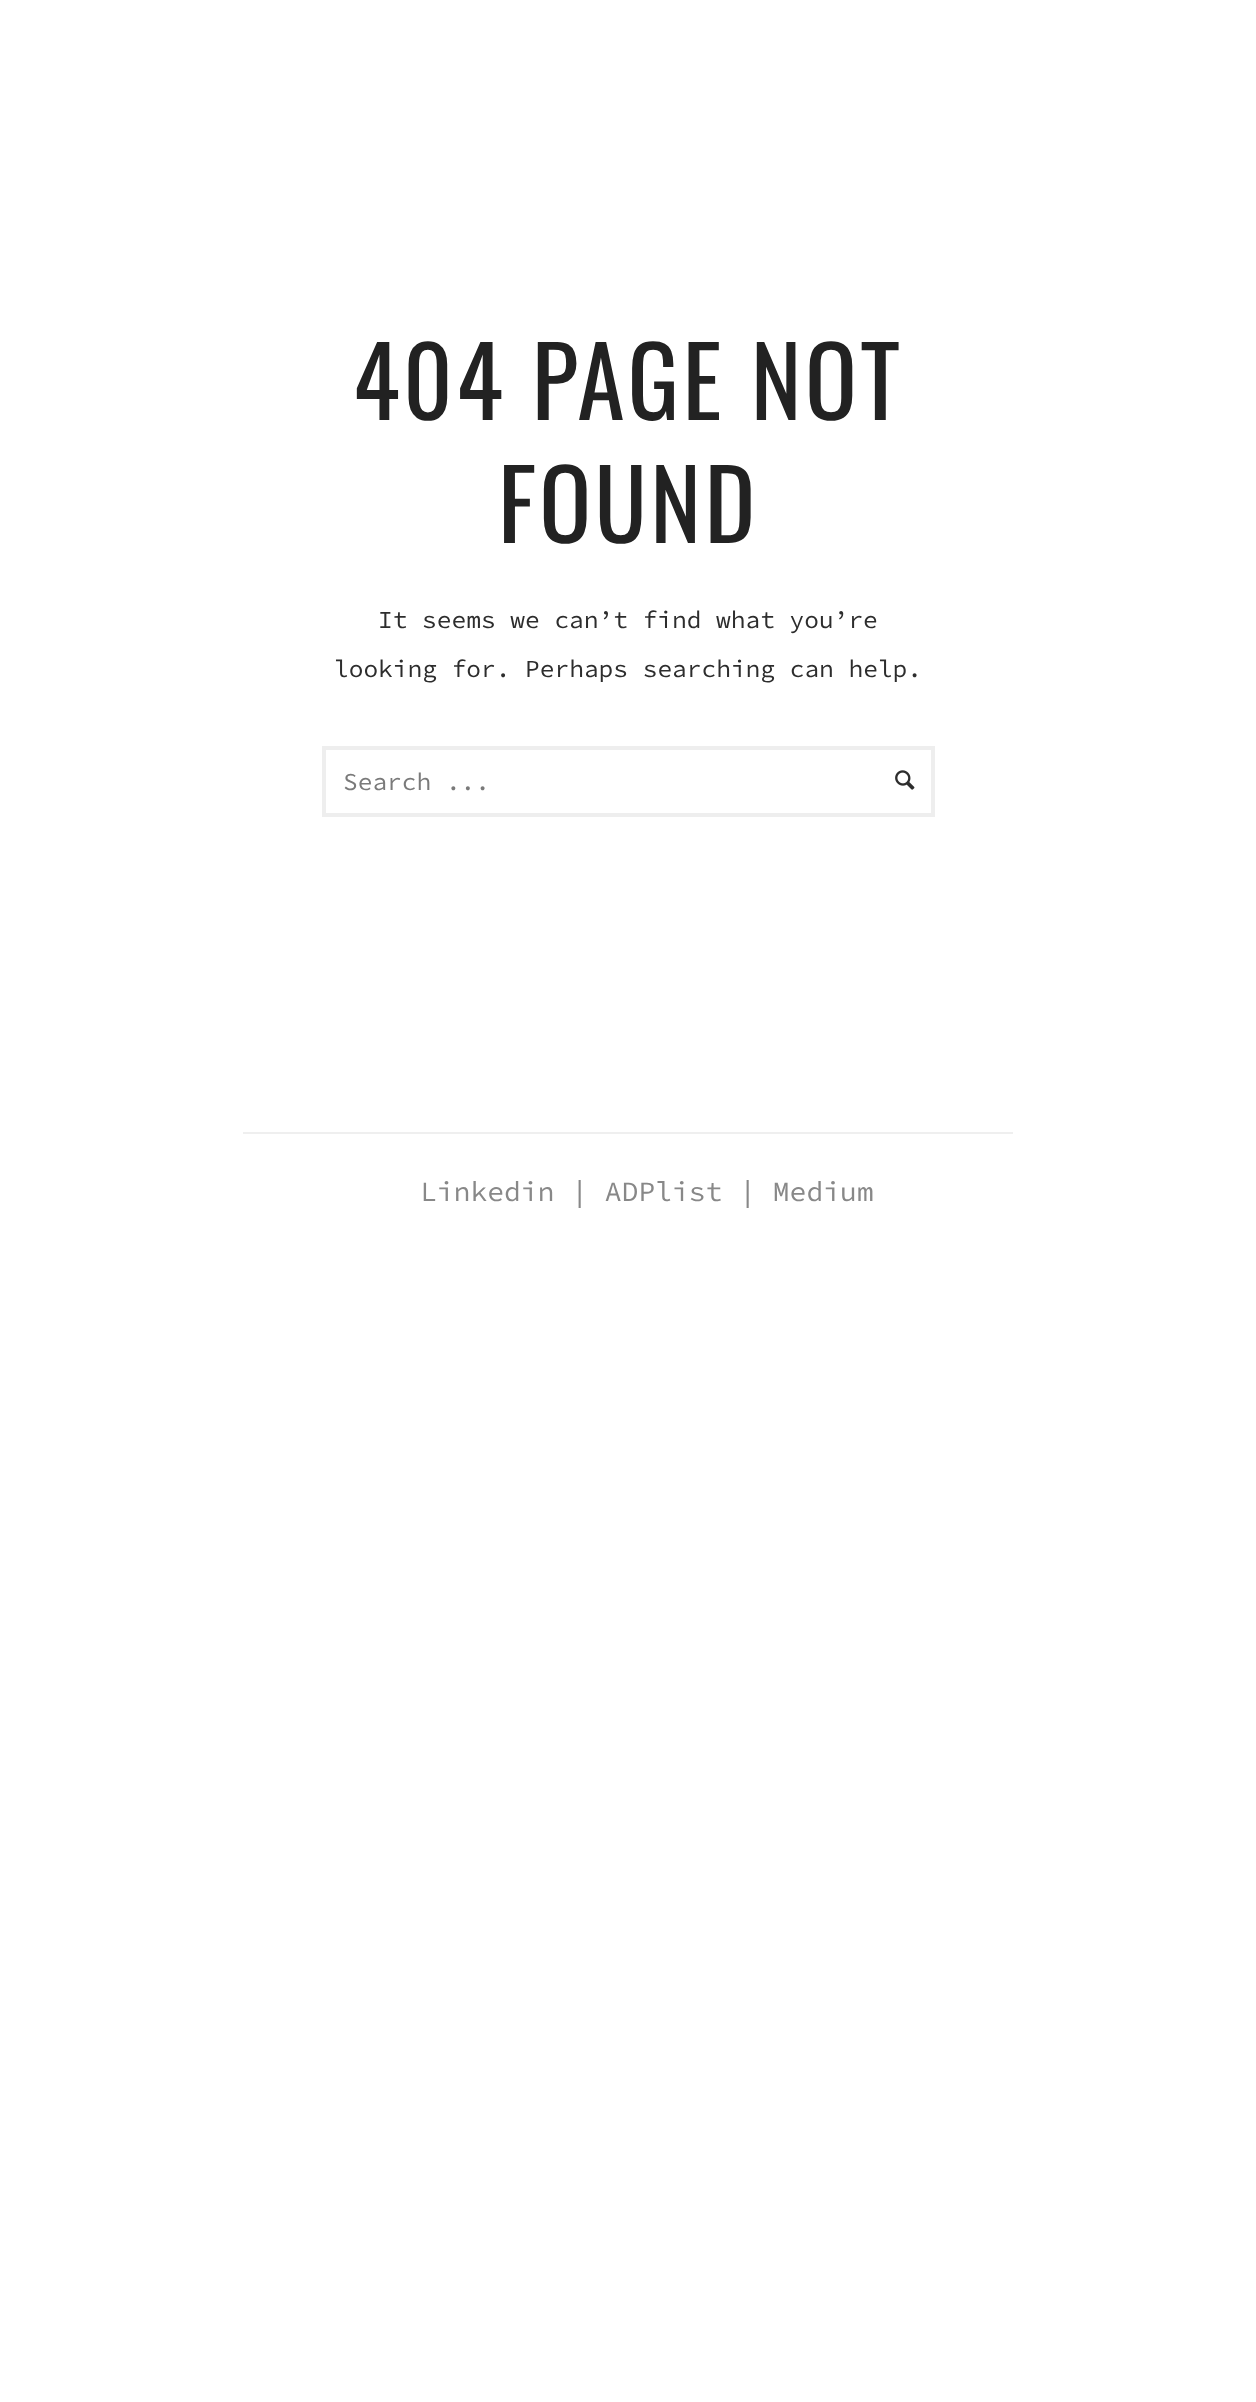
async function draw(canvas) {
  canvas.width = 1256
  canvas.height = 2402
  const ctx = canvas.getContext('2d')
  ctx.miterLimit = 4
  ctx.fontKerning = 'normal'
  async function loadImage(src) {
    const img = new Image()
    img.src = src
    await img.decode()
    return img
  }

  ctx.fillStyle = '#fff'
  ctx.fillRect(0, 0, 1256, 2402)
  ctx.letterSpacing = '3.5px'
  ctx.font = '96.25px Oswald'
  ctx.fillStyle = '#222'
  ctx.fillText('404 PAGE NOT', 353, 420)
  ctx.fillText('FOUND', 498, 543)
  ctx.letterSpacing = '0px'
  ctx.font = '200 24.5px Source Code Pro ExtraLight'
  ctx.fillStyle = '#2d2d2d'
  ctx.fillText('It seems we can’t find what you’re', 378, 628)
  ctx.fillText('looking for. Perhaps searching can help.', 334, 677)
  ctx.strokeStyle = '#eee'
  ctx.lineWidth = 4
  ctx.strokeRect(324, 748, 609, 67)
  ctx.fillStyle = '#7a7a7a'
  ctx.fillText('Search ...', 343, 790)
  ctx.drawImage(await loadImage('image0.png'), 895, 770, 20, 20)
  ctx.fillStyle = '#efefef'
  ctx.fillRect(243, 1132, 770, 2)
  ctx.font = '200 28px Source Code Pro ExtraLight'
  ctx.fillStyle = '#888'
  ctx.fillText('Linkedin | ADPlist | Medium', 420, 1201)
}

draw(document.querySelector('canvas'))
